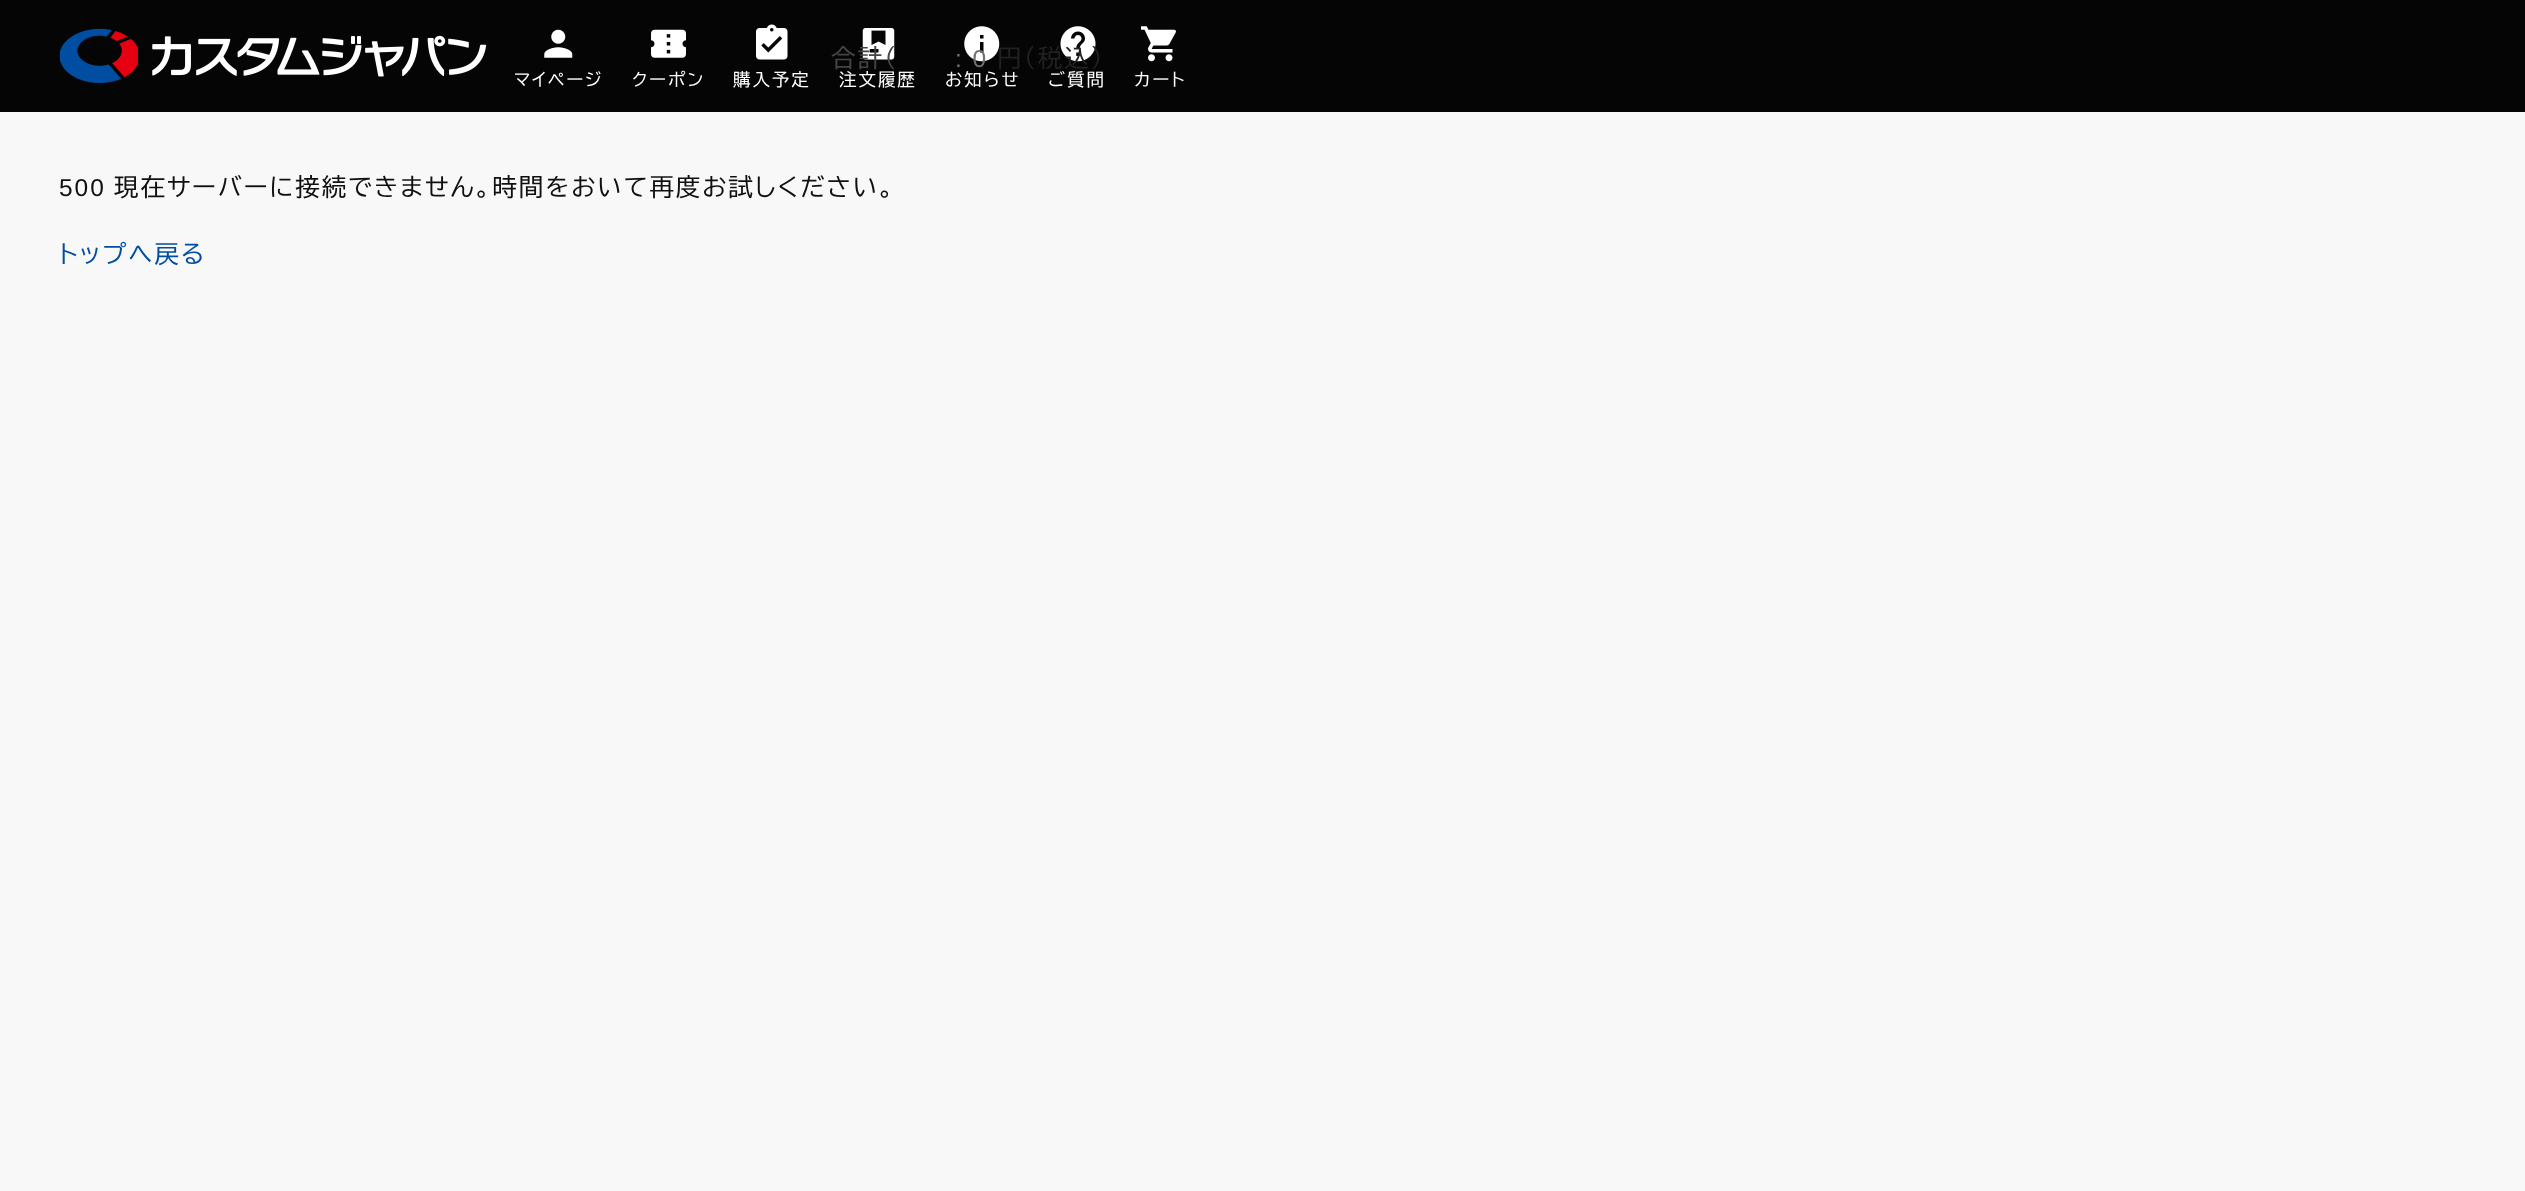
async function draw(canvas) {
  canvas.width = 2525
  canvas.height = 1191
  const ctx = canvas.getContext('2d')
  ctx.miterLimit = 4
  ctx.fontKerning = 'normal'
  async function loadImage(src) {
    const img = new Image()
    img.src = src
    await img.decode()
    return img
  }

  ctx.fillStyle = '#f8f8f8'
  ctx.fillRect(0, 0, 2525, 1191)
  ctx.fillStyle = '#050505'
  ctx.fillRect(0, 0, 2525, 112)
  ctx.drawImage(await loadImage('image0.png'), 60, 28, 78, 56)
  ctx.drawImage(await loadImage('image1.png'), 152, 35, 335, 42)
  ctx.drawImage(await loadImage('image2.png'), 651, 29, 35, 29)
  ctx.letterSpacing = '1.95px'
  ctx.font = '17.5px BIZ UDPGothic'
  ctx.fillStyle = '#fff'
  ctx.fillText('クーポン', 632, 86)
  ctx.drawImage(await loadImage('image6.png'), 862, 28, 33, 32)
  ctx.font = '24.5px BIZ UDPGothic'
  ctx.fillStyle = '#444'
  ctx.fillText('合計（', 831, 67)
  ctx.drawImage(await loadImage('image7.png'), 964, 26, 36, 36)
  ctx.font = '24.5px Liberation Sans'
  ctx.fillStyle = '#717171'
  ctx.fillText(': 0', 955, 67)
  ctx.drawImage(await loadImage('image8.png'), 1060, 26, 36, 36)
  ctx.font = '24.5px BIZ UDPGothic'
  ctx.fillStyle = '#212121'
  ctx.fillText('円（税込）', 997, 67)
  ctx.drawImage(await loadImage('image3.png'), 1141, 26, 35, 36)
  ctx.font = '17.5px BIZ UDPGothic'
  ctx.fillStyle = '#fff'
  ctx.fillText('カート', 1134, 86)
  ctx.drawImage(await loadImage('image4.png'), 544, 29, 29, 29)
  ctx.fillText('マイページ', 514, 86)
  ctx.drawImage(await loadImage('image5.png'), 756, 24, 32, 36)
  ctx.fillText('購入予定', 733, 86)
  ctx.fillText('注文履歴', 839, 86)
  ctx.fillText('お知らせ', 945, 86)
  ctx.fillText('ご質問', 1048, 86)
  ctx.font = '24.5px Liberation Sans'
  ctx.fillStyle = '#101010'
  ctx.fillText('500', 59, 196)
  ctx.font = '24.5px BIZ UDPGothic'
  ctx.fillText('現在サーバーに接続できません。時間をおいて再度お試しください。', 114, 196)
  ctx.fillStyle = '#004ea2'
  ctx.fillText('トップへ戻る', 59, 263)
}

draw(document.querySelector('canvas'))
